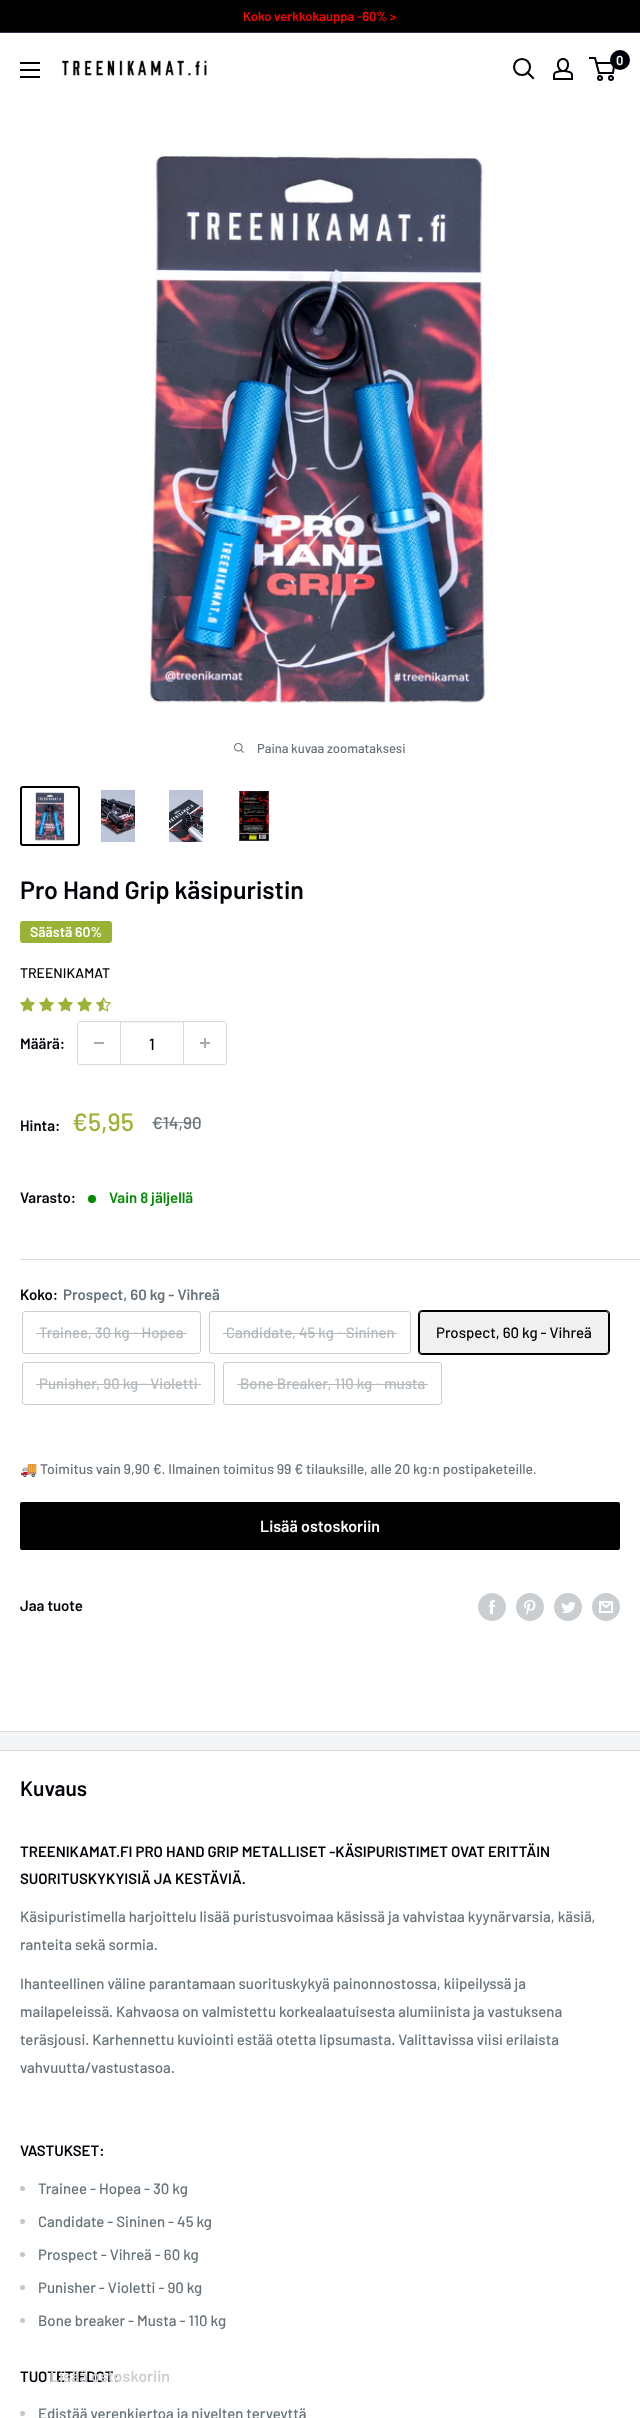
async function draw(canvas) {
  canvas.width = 640
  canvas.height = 2418
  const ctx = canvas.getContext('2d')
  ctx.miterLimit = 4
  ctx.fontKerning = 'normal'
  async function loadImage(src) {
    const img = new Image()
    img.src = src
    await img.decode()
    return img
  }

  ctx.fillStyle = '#f3f5f6'
  ctx.fillRect(0, 0, 640, 2418)
  ctx.fillStyle = '#000'
  ctx.fillRect(0, 0, 640, 32)
  ctx.fillStyle = '#313548'
  ctx.fillRect(0, 32, 640, 1)
  ctx.font = '600 13px Barlow'
  ctx.fillStyle = '#f00'
  ctx.fillText('Koko verkkokauppa -60% >', 243, 21)
  ctx.fillStyle = '#fff'
  ctx.fillRect(0, 33, 640, 1698)
  ctx.drawImage(await loadImage('image0.png'), 20, 62, 20, 16)
  ctx.drawImage(await loadImage('image1.png'), 61, 60, 146, 16)
  ctx.beginPath()
  ctx.moveTo(533, 78)
  ctx.lineTo(527.5, 72.5)
  ctx.strokeStyle = '#00020a'
  ctx.lineWidth = 2.1
  ctx.lineCap = 'square'
  ctx.stroke()
  ctx.beginPath()
  ctx.arc(522, 67, 8, 0, 2 * Math.PI)
  ctx.stroke()
  ctx.drawImage(await loadImage('image2.png'), 553, 58, 20, 22)
  ctx.beginPath()
  ctx.arc(600, 78, 2, 0, 2 * Math.PI)
  ctx.lineWidth = 2
  ctx.stroke()
  ctx.beginPath()
  ctx.arc(611, 78, 2, 0, 2 * Math.PI)
  ctx.stroke()
  ctx.beginPath()
  ctx.moveTo(596.5, 63)
  ctx.lineTo(614.5, 63)
  ctx.lineTo(613, 73)
  ctx.lineTo(599, 73)
  ctx.lineTo(595, 58)
  ctx.lineTo(589, 58)
  ctx.lineCap = 'butt'
  ctx.stroke()
  ctx.fillStyle = '#00020a'
  ctx.beginPath()
  ctx.arc(620, 60, 10, 0, 2 * Math.PI)
  ctx.fill()
  ctx.fillStyle = '#fff'
  ctx.fillText('0', 616, 65)
  ctx.drawImage(await loadImage('image3.png'), 145, 153, 343, 551)
  ctx.drawImage(await loadImage('image4.png'), 234, 743, 10, 10)
  ctx.font = '500 13px Barlow'
  ctx.fillStyle = '#677279'
  ctx.fillText('Paina kuvaa zoomataksesi', 257, 753)
  ctx.beginPath()
  ctx.roundRect(21, 787, 58, 58, 2)
  ctx.strokeStyle = '#000'
  ctx.stroke()
  ctx.drawImage(await loadImage('image5.png'), 34, 792, 32, 49)
  ctx.drawImage(await loadImage('image6.png'), 101, 790, 34, 52)
  ctx.drawImage(await loadImage('image7.png'), 169, 790, 34, 52)
  ctx.drawImage(await loadImage('image8.png'), 239, 790, 30, 51)
  ctx.fillStyle = '#dbdbdb'
  ctx.fillRect(0, 1731, 640, 1)
  ctx.font = '600 25px Barlow'
  ctx.fillStyle = '#00020a'
  ctx.fillText('Pro Hand Grip käsipuristin', 20, 899)
  ctx.fillStyle = '#9ab336'
  ctx.beginPath()
  ctx.roundRect(20, 921, 92, 22, 3)
  ctx.fill()
  ctx.font = '600 14px Barlow'
  ctx.fillStyle = '#fff'
  ctx.fillText('Säästä 60%', 30, 937)
  ctx.font = '500 14px Barlow'
  ctx.fillStyle = '#000'
  ctx.fillText('TREENIKAMAT', 20, 978)
  ctx.drawImage(await loadImage('image9.png'), 20, 997, 15, 15)
  ctx.drawImage(await loadImage('image9.png'), 39, 997, 15, 15)
  ctx.drawImage(await loadImage('image9.png'), 58, 997, 15, 15)
  ctx.drawImage(await loadImage('image9.png'), 77, 997, 15, 15)
  ctx.drawImage(await loadImage('image10.png'), 96, 997, 15, 15)
  ctx.font = '600 15px Barlow'
  ctx.fillStyle = '#00020a'
  ctx.fillText('Määrä:', 20, 1049)
  ctx.beginPath()
  ctx.roundRect(77.5, 1021.5, 149, 43, 2.5)
  ctx.strokeStyle = '#dbdbdb'
  ctx.lineWidth = 1
  ctx.stroke()
  ctx.fillStyle = '#a4aaaf'
  ctx.fillRect(94, 1042, 10, 2)
  ctx.fillStyle = '#f1f1f1'
  ctx.fillRect(121, 1022, 62, 1)
  ctx.fillStyle = '#dbdbdb'
  ctx.fillRect(183, 1022, 1, 42)
  ctx.fillRect(120, 1022, 1, 42)
  ctx.font = '500 16px Barlow'
  ctx.fillStyle = '#00020a'
  ctx.fillText('1', 149, 1050)
  ctx.drawImage(await loadImage('image11.png'), 200, 1038, 10, 10)
  ctx.font = '600 15px Barlow'
  ctx.fillText('Hinta:', 20, 1131)
  ctx.font = '500 25px Barlow'
  ctx.fillStyle = '#9ab336'
  ctx.fillText('€5,95', 72, 1131)
  ctx.font = '500 17px Barlow'
  ctx.fillStyle = '#677279'
  ctx.fillText('€14,90', 152, 1129)
  ctx.fillStyle = '#677279b3'
  ctx.fillRect(152, 1122, 49, 1)
  ctx.font = '600 15px Barlow'
  ctx.fillStyle = '#00020a'
  ctx.fillText('Varasto:', 20, 1203)
  ctx.fillStyle = '#008a00'
  ctx.beginPath()
  ctx.arc(92, 1199, 4, 0, 2 * Math.PI)
  ctx.fill()
  ctx.fillText('Vain 8 jäljellä', 109, 1203)
  ctx.fillStyle = '#dbdbdb'
  ctx.fillRect(20, 1259, 620, 1)
  ctx.fillStyle = '#00020a'
  ctx.fillText('Koko:', 20, 1300)
  ctx.fillStyle = '#677279'
  ctx.fillText('Prospect, 60 kg - Vihreä', 63, 1300)
  ctx.beginPath()
  ctx.roundRect(22.5, 1311.5, 178, 42, 2.5)
  ctx.strokeStyle = '#cecece'
  ctx.stroke()
  ctx.font = '500 15px Barlow'
  ctx.fillStyle = '#b3b9bc'
  ctx.fillText('Trainee, 30 kg - Hopea', 39, 1338)
  ctx.fillRect(36, 1333, 151, 1)
  ctx.beginPath()
  ctx.roundRect(209.5, 1311.5, 201, 42, 2.5)
  ctx.stroke()
  ctx.fillText('Candidate, 45 kg - Sininen', 226, 1338)
  ctx.fillRect(223, 1333, 174, 1)
  ctx.beginPath()
  ctx.roundRect(418.5, 1310.5, 191, 44, 3.5)
  ctx.strokeStyle = '#000'
  ctx.stroke()
  ctx.fillStyle = '#0000000f'
  ctx.fillRect(419, 1311, 190, 43)
  ctx.beginPath()
  ctx.roundRect(419.5, 1311.5, 189, 42, 2.5)
  ctx.stroke()
  ctx.fillStyle = '#000'
  ctx.fillText('Prospect, 60 kg - Vihreä', 436, 1338)
  ctx.beginPath()
  ctx.roundRect(22.5, 1362.5, 192, 42, 2.5)
  ctx.strokeStyle = '#cecece'
  ctx.stroke()
  ctx.fillStyle = '#b3b9bc'
  ctx.fillText('Punisher, 90 kg - Violetti', 39, 1389)
  ctx.fillRect(36, 1384, 165, 1)
  ctx.beginPath()
  ctx.roundRect(223.5, 1362.5, 218, 42, 2.5)
  ctx.stroke()
  ctx.fillText('Bone Breaker, 110 kg - musta', 240, 1389)
  ctx.fillRect(237, 1384, 191, 1)
  ctx.font = '14px Noto Color Emoji'
  ctx.fillStyle = '#677279'
  ctx.fillText('🚚', 20, 1474)
  ctx.font = '500 14px Barlow'
  ctx.fillText('Toimitus vain 9,90 €. Ilmainen toimitus 99 € tilauksille, alle 20 kg:n postipaketeille.', 40, 1474)
  ctx.fillStyle = '#000'
  ctx.beginPath()
  ctx.roundRect(20, 1502, 600, 48, 2)
  ctx.fill()
  ctx.font = '600 16px Barlow'
  ctx.fillStyle = '#fff'
  ctx.fillText('Lisää ostoskoriin', 260, 1532)
  ctx.fillRect(0, 1751, 640, 667)
  ctx.font = '600 15px Barlow'
  ctx.fillStyle = '#00020a'
  ctx.fillText('TUOTETIEDOT:', 20, 2382)
  ctx.font = '600 16px Barlow'
  ctx.fillStyle = '#cfd0d1'
  ctx.fillText('Lisää ostoskoriin', 50, 2382)
  ctx.font = '600 15px Barlow'
  ctx.fillStyle = '#00020a'
  ctx.fillText('Jaa tuote', 20, 1611)
  ctx.drawImage(await loadImage('image12.png'), 478, 1593, 28, 28)
  ctx.drawImage(await loadImage('image13.png'), 516, 1593, 28, 28)
  ctx.drawImage(await loadImage('image14.png'), 554, 1593, 28, 28)
  ctx.drawImage(await loadImage('image15.png'), 592, 1593, 28, 28)
  ctx.fillStyle = '#dbdbdb'
  ctx.fillRect(0, 1750, 640, 1)
  ctx.font = '600 21px Barlow'
  ctx.fillStyle = '#00020a'
  ctx.fillText('Kuvaus', 20, 1796)
  ctx.font = '600 15px Barlow'
  ctx.fillText('TREENIKAMAT.FI PRO HAND GRIP METALLISET -KÄSIPURISTIMET OVAT ERITTÄIN', 20, 1857)
  ctx.fillText('SUORITUSKYKYISIÄ JA KESTÄVIÄ.', 20, 1884)
  ctx.font = '500 15px Barlow'
  ctx.fillStyle = '#677279'
  ctx.fillText('Käsipuristimella harjoittelu lisää puristusvoimaa käsissä ja vahvistaa kyynärvarsia, käsiä,', 20, 1922)
  ctx.fillText('ranteita sekä sormia.', 20, 1950)
  ctx.fillText('Ihanteellinen väline parantamaan suorituskykyä painonnostossa, kiipeilyssä ja', 20, 1989)
  ctx.fillText('mailapeleissä. Kahvaosa on valmistettu korkealaatuisesta alumiinista ja vastuksena', 20, 2017)
  ctx.fillText('teräsjousi. Karhennettu kuviointi estää otetta lipsumasta. Valittavissa viisi erilaista', 20, 2045)
  ctx.fillText('vahvuutta/vastustasoa.', 20, 2073)
  ctx.font = '600 15px Barlow'
  ctx.fillStyle = '#00020a'
  ctx.fillText('VASTUKSET:', 20, 2156)
  ctx.fillStyle = '#c2c7c9'
  ctx.beginPath()
  ctx.arc(22.5, 2188.5, 2.5, 0, 2 * Math.PI)
  ctx.fill()
  ctx.font = '500 15px Barlow'
  ctx.fillStyle = '#677279'
  ctx.fillText('Trainee - Hopea - 30 kg', 38, 2194)
  ctx.fillStyle = '#c2c7c9'
  ctx.beginPath()
  ctx.arc(22.5, 2221.5, 2.5, 0, 2 * Math.PI)
  ctx.fill()
  ctx.fillStyle = '#677279'
  ctx.fillText('Candidate - Sininen - 45 kg', 38, 2227)
  ctx.fillStyle = '#c2c7c9'
  ctx.beginPath()
  ctx.arc(22.5, 2254.5, 2.5, 0, 2 * Math.PI)
  ctx.fill()
  ctx.fillStyle = '#677279'
  ctx.fillText('Prospect - Vihreä - 60 kg', 38, 2260)
  ctx.fillStyle = '#c2c7c9'
  ctx.beginPath()
  ctx.arc(22.5, 2287.5, 2.5, 0, 2 * Math.PI)
  ctx.fill()
  ctx.fillStyle = '#677279'
  ctx.fillText('Punisher - Violetti - 90 kg', 38, 2293)
  ctx.fillStyle = '#c2c7c9'
  ctx.beginPath()
  ctx.arc(22.5, 2320.5, 2.5, 0, 2 * Math.PI)
  ctx.fill()
  ctx.fillStyle = '#677279'
  ctx.fillText('Bone breaker - Musta - 110 kg', 38, 2326)
  ctx.fillStyle = '#c2c7c9'
  ctx.beginPath()
  ctx.arc(22.5, 2413.5, 2.5, 0, 2 * Math.PI)
  ctx.fill()
  ctx.fillStyle = '#677279'
  ctx.fillText('Edistää verenkiertoa ja nivelten terveyttä', 38, 2419)
}

draw(document.querySelector('canvas'))
